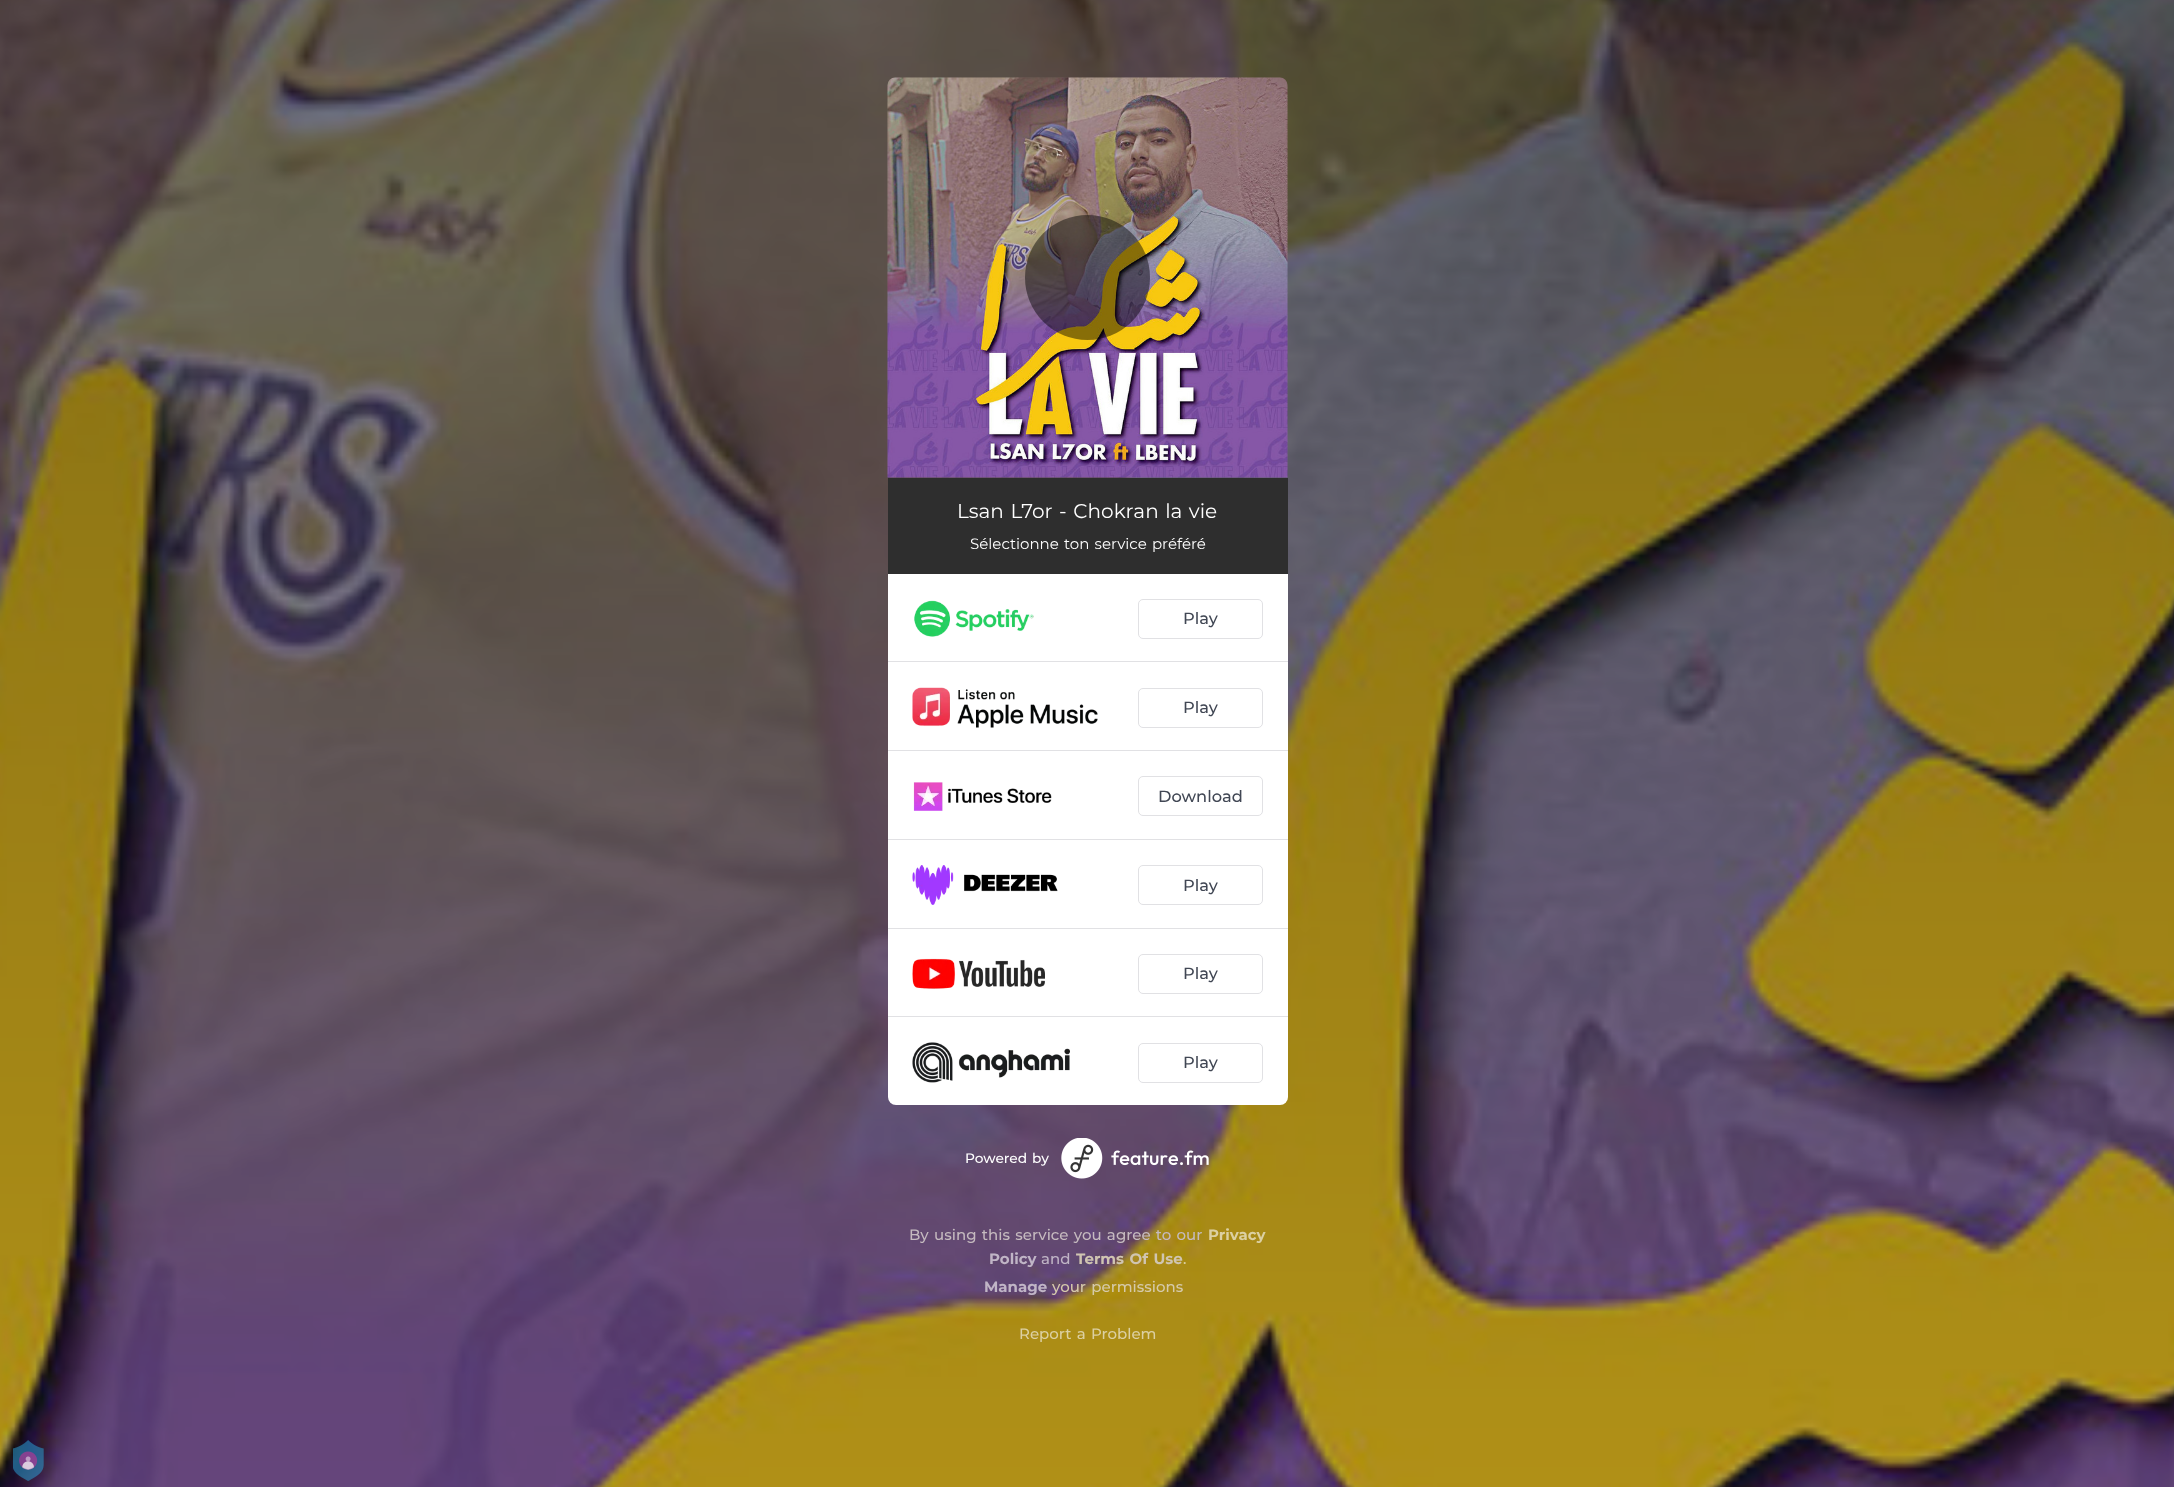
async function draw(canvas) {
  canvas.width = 2174
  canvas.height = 1487
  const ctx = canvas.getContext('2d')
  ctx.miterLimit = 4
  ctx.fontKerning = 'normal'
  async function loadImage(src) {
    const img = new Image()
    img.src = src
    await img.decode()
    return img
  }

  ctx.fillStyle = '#fff'
  ctx.fillRect(0, 0, 2174, 1487)
  ctx.drawImage(await loadImage('image0.png'), 0, 0, 2174, 1487)
  ctx.drawImage(await loadImage('image1.png'), 887, 77, 401, 401)
  ctx.fillStyle = '#00000073'
  ctx.beginPath()
  ctx.arc(1087.5, 277.5, 62.5, 0, 2 * Math.PI)
  ctx.fill()
  ctx.fillStyle = '#2e2e2e'
  ctx.fillRect(888, 478, 400, 96)
  ctx.wordSpacing = '1.25px'
  ctx.font = '20px Montserrat'
  ctx.fillStyle = '#fff'
  ctx.fillText('Lsan L7or - Chokran la vie', 957, 518)
  ctx.font = '15px Montserrat'
  ctx.fillText('Sélectionne ton service préféré', 970, 549)
  ctx.beginPath()
  ctx.roundRect(888, 574, 400, 531, [0, 0, 8, 8])
  ctx.fill()
  ctx.fillStyle = '#e1e1e4'
  ctx.fillRect(888, 661, 400, 1)
  ctx.drawImage(await loadImage('image2.png'), 914, 600, 120, 37)
  ctx.beginPath()
  ctx.roundRect(1138.5, 599.5, 124, 39, 4.5)
  ctx.strokeStyle = '#e1e1e4'
  ctx.stroke()
  ctx.wordSpacing = '0px'
  ctx.font = '500 16.25px Montserrat'
  ctx.fillStyle = '#414754'
  ctx.fillText('Play', 1183, 624)
  ctx.fillStyle = '#e1e1e4'
  ctx.fillRect(888, 750, 400, 1)
  ctx.drawImage(await loadImage('image3.png'), 912, 687, 186, 41)
  ctx.beginPath()
  ctx.roundRect(1138.5, 688.5, 124, 39, 4.5)
  ctx.stroke()
  ctx.fillStyle = '#414754'
  ctx.fillText('Play', 1183, 713)
  ctx.fillStyle = '#e1e1e4'
  ctx.fillRect(888, 839, 400, 1)
  ctx.drawImage(await loadImage('image4.png'), 913, 782, 139, 29)
  ctx.beginPath()
  ctx.roundRect(1138.5, 776.5, 124, 39, 4.5)
  ctx.stroke()
  ctx.fillStyle = '#414754'
  ctx.fillText('Download', 1158, 802)
  ctx.fillStyle = '#e1e1e4'
  ctx.fillRect(888, 928, 400, 1)
  ctx.drawImage(await loadImage('image5.png'), 912, 865, 146, 40)
  ctx.beginPath()
  ctx.roundRect(1138.5, 865.5, 124, 39, 4.5)
  ctx.stroke()
  ctx.fillStyle = '#414754'
  ctx.fillText('Play', 1183, 891)
  ctx.fillStyle = '#e1e1e4'
  ctx.fillRect(888, 1016, 400, 1)
  ctx.drawImage(await loadImage('image6.png'), 912, 958, 133, 31)
  ctx.beginPath()
  ctx.roundRect(1138.5, 954.5, 124, 39, 4.5)
  ctx.stroke()
  ctx.fillStyle = '#414754'
  ctx.fillText('Play', 1183, 979)
  ctx.drawImage(await loadImage('image7.png'), 912, 1042, 158, 41)
  ctx.beginPath()
  ctx.roundRect(1138.5, 1043.5, 124, 39, 4.5)
  ctx.stroke()
  ctx.fillText('Play', 1183, 1068)
  ctx.wordSpacing = '1.25px'
  ctx.font = '500 13.75px Montserrat'
  ctx.fillStyle = '#fff'
  ctx.fillText('Powered by', 965, 1163)
  ctx.drawImage(await loadImage('image8.png'), 1061, 1138, 148, 41)
  ctx.font = '500 15px Montserrat'
  ctx.fillStyle = '#c5babf'
  ctx.fillText('By using this service you agree to our', 909, 1240)
  ctx.wordSpacing = '0px'
  ctx.font = 'bold 15px Montserrat'
  ctx.fillStyle = '#dcd0a2'
  ctx.fillText('Privacy', 1208, 1240)
  ctx.fillStyle = '#c0b5c6'
  ctx.fillText('Policy', 989, 1264)
  ctx.font = '500 15px Montserrat'
  ctx.fillText('and', 1041, 1264)
  ctx.wordSpacing = '1.25px'
  ctx.font = 'bold 15px Montserrat'
  ctx.fillStyle = '#d0c5b1'
  ctx.fillText('Terms Of Use', 1076, 1264)
  ctx.wordSpacing = '0px'
  ctx.font = '500 15px Montserrat'
  ctx.fillStyle = '#dcd0a2'
  ctx.fillText('.', 1183, 1264)
  ctx.font = 'bold 15px Montserrat'
  ctx.fillStyle = '#c0b5c6'
  ctx.fillText('Manage', 984, 1292)
  ctx.wordSpacing = '1.25px'
  ctx.font = '500 15px Montserrat'
  ctx.fillStyle = '#d6caab'
  ctx.fillText('your permissions', 1052, 1292)
  ctx.fillStyle = '#dcd0a2'
  ctx.fillText('Report a Problem', 1019, 1339)
  ctx.drawImage(await loadImage('image9.png'), 13, 1440, 31, 41)
}

draw(document.querySelector('canvas'))
